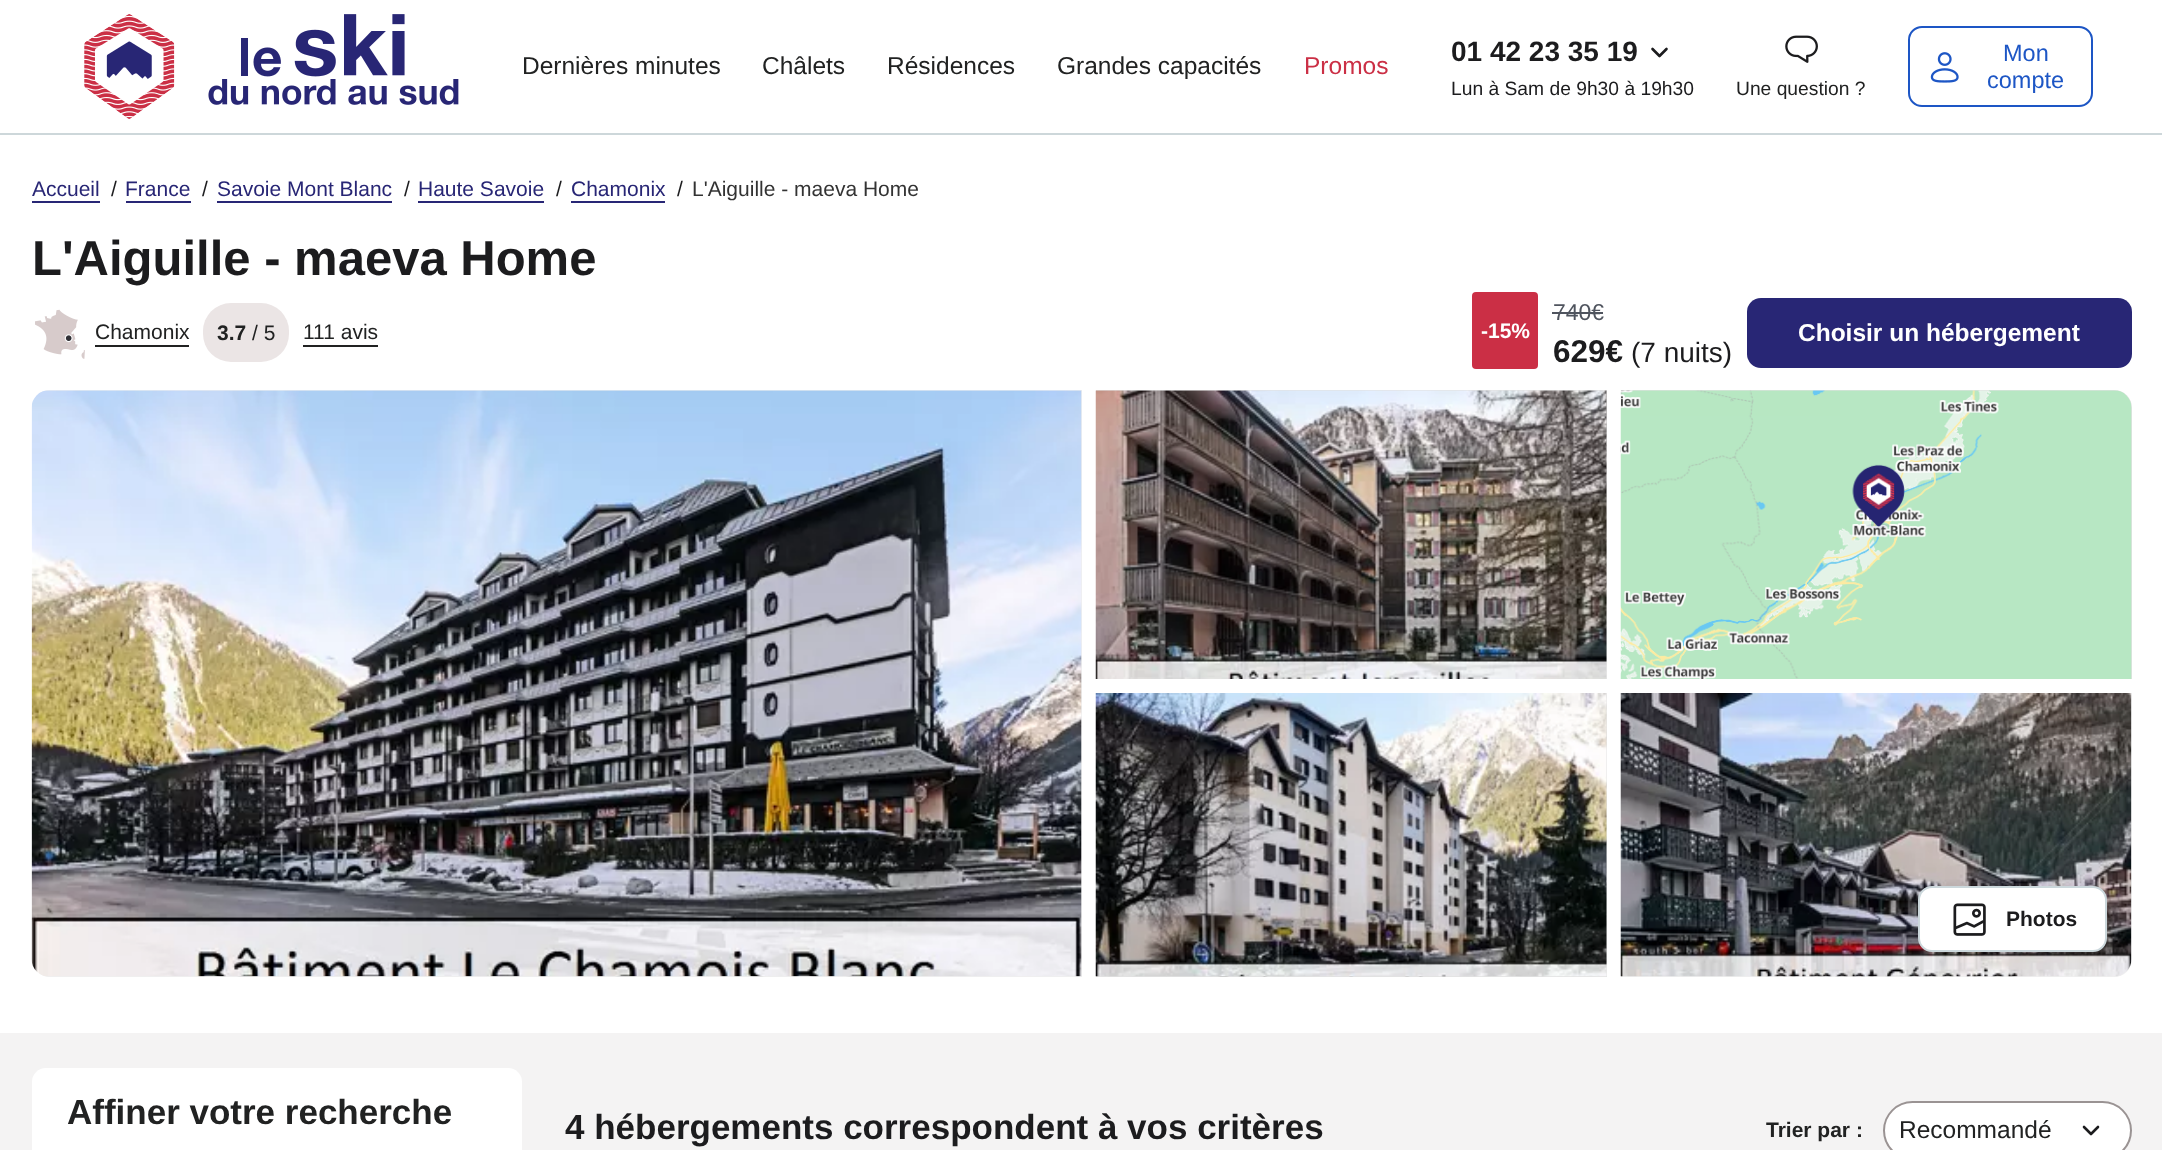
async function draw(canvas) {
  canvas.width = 2162
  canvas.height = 1150
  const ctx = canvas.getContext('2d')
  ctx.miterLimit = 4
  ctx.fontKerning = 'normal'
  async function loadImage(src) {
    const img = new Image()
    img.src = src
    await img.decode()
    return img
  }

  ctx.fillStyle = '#fff'
  ctx.fillRect(0, 0, 2162, 1150)
  ctx.fillStyle = '#cdd7da'
  ctx.fillRect(0, 133, 2162, 2)
  ctx.drawImage(await loadImage('image0.png'), 84, 14, 375, 105)
  ctx.font = '24.5px Liberation Sans'
  ctx.fillStyle = '#212222'
  ctx.fillText('Dernières minutes', 522, 74)
  ctx.fillText('Châlets', 762, 74)
  ctx.fillText('Résidences', 887, 74)
  ctx.fillText('Grandes capacités', 1057, 74)
  ctx.fillStyle = '#cb2f45'
  ctx.fillText('Promos', 1304, 74)
  ctx.font = 'bold 28px Liberation Sans'
  ctx.fillStyle = '#1c1c1e'
  ctx.fillText('01 42 23 35 19', 1451, 61)
  ctx.beginPath()
  ctx.moveTo(1666.5, 49)
  ctx.lineTo(1659.5, 56)
  ctx.lineTo(1652.5, 49)
  ctx.strokeStyle = '#1c1c1e'
  ctx.lineWidth = 2.6
  ctx.lineCap = 'round'
  ctx.lineJoin = 'round'
  ctx.stroke()
  ctx.font = '19.25px Liberation Sans'
  ctx.fillText('Lun à Sam de 9h30 à 19h30', 1451, 95)
  ctx.drawImage(await loadImage('image1.png'), 1785, 35, 33, 28)
  ctx.fillStyle = '#212222'
  ctx.fillText('Une question ?', 1736, 95)
  ctx.beginPath()
  ctx.roundRect(1909, 27, 183, 79, 13)
  ctx.strokeStyle = '#1d56c5'
  ctx.lineWidth = 2
  ctx.lineJoin = 'miter'
  ctx.stroke()
  ctx.drawImage(await loadImage('image2.png'), 1930, 52, 29, 31)
  ctx.font = '23.5px Liberation Sans'
  ctx.fillStyle = '#1d56c5'
  ctx.fillText('Mon', 2003, 61)
  ctx.fillText('compte', 1987, 88)
  ctx.font = '21px Liberation Sans'
  ctx.fillStyle = '#282675'
  ctx.fillText('Accueil', 32, 196)
  ctx.fillRect(32, 201, 68, 2)
  ctx.fillStyle = '#1c1c1e'
  ctx.fillText('/', 111, 196)
  ctx.fillStyle = '#282675'
  ctx.fillText('France', 125, 196)
  ctx.fillRect(126, 201, 65, 2)
  ctx.fillStyle = '#1c1c1e'
  ctx.fillText('/', 202, 196)
  ctx.fillStyle = '#282675'
  ctx.fillText('Savoie Mont Blanc', 217, 196)
  ctx.fillRect(217, 201, 175, 2)
  ctx.fillStyle = '#1c1c1e'
  ctx.fillText('/', 404, 196)
  ctx.fillStyle = '#282675'
  ctx.fillText('Haute Savoie', 418, 196)
  ctx.fillRect(418, 201, 126, 2)
  ctx.fillStyle = '#1c1c1e'
  ctx.fillText('/', 556, 196)
  ctx.fillStyle = '#282675'
  ctx.fillText('Chamonix', 571, 196)
  ctx.fillRect(571, 201, 94, 2)
  ctx.fillStyle = '#1c1c1e'
  ctx.fillText('/', 677, 196)
  ctx.fillStyle = '#333'
  ctx.fillText('L\'Aiguille - maeva Home', 692, 196)
  ctx.font = 'bold 49px Liberation Sans'
  ctx.fillStyle = '#1c1c1e'
  ctx.fillText('L\'Aiguille - maeva Home', 32, 275)
  ctx.drawImage(await loadImage('image3.png'), 35, 309, 50, 50)
  ctx.fillStyle = '#212222'
  ctx.fillRect(95, 345, 94, 2)
  ctx.font = '21px Liberation Sans'
  ctx.fillText('Chamonix', 95, 339)
  ctx.fillStyle = '#ebe5e5'
  ctx.beginPath()
  ctx.roundRect(203, 303, 86, 59, 28)
  ctx.fill()
  ctx.font = 'bold 21px Liberation Sans'
  ctx.fillStyle = '#212222'
  ctx.fillText('3.7', 217, 340)
  ctx.font = '21px Liberation Sans'
  ctx.fillText('/ 5', 252, 340)
  ctx.fillRect(303, 345, 75, 2)
  ctx.fillText('111 avis', 303, 339)
  ctx.fillStyle = '#cb2f45'
  ctx.beginPath()
  ctx.roundRect(1472, 292, 66, 77, 4)
  ctx.fill()
  ctx.font = 'bold 21px Liberation Sans'
  ctx.fillStyle = '#fff'
  ctx.fillText('-15%', 1481, 338)
  ctx.font = '23px Liberation Sans'
  ctx.fillStyle = '#4f545e'
  ctx.fillText('740€', 1553, 320)
  ctx.fillRect(1552, 312, 51, 2)
  ctx.font = 'bold 31.5px Liberation Sans'
  ctx.fillStyle = '#1c1c1e'
  ctx.fillText('629€', 1553, 362)
  ctx.font = '28px Liberation Sans'
  ctx.fillText('(7 nuits)', 1631, 362)
  ctx.fillStyle = '#282675'
  ctx.beginPath()
  ctx.roundRect(1747, 298, 385, 70, 14)
  ctx.fill()
  ctx.font = 'bold 24.5px Liberation Sans'
  ctx.fillStyle = '#fff'
  ctx.fillText('Choisir un hébergement', 1798, 341)
  ctx.fillStyle = '#efefef'
  ctx.beginPath()
  ctx.roundRect(32, 390, 1050, 587, [18, 0, 0, 18])
  ctx.fill()
  ctx.drawImage(await loadImage('image4.png'), 31, 390, 1051, 587)
  ctx.fillStyle = '#e2e2e2'
  ctx.fillRect(1096, 390, 511, 289)
  ctx.drawImage(await loadImage('image5.png'), 1095, 390, 512, 289)
  ctx.fillRect(1096, 693, 511, 284)
  ctx.drawImage(await loadImage('image6.png'), 1095, 693, 512, 284)
  ctx.beginPath()
  ctx.roundRect(1621, 390, 511, 289, [0, 18, 0, 0])
  ctx.fill()
  ctx.drawImage(await loadImage('image7.png'), 1620, 390, 512, 289)
  ctx.fillStyle = '#efefef'
  ctx.beginPath()
  ctx.roundRect(1621, 693, 511, 284, [0, 0, 18, 0])
  ctx.fill()
  ctx.drawImage(await loadImage('image8.png'), 1620, 693, 512, 284)
  ctx.fillStyle = '#fff'
  ctx.beginPath()
  ctx.roundRect(1919, 887, 187, 64, 13)
  ctx.fill()
  ctx.strokeStyle = '#cbd7db'
  ctx.stroke()
  ctx.drawImage(await loadImage('image9.png'), 1953, 903, 33, 33)
  ctx.font = 'bold 21px Liberation Sans'
  ctx.fillStyle = '#1c1c1e'
  ctx.fillText('Photos', 2006, 926)
  ctx.fillStyle = '#f4f3f3'
  ctx.fillRect(0, 1033, 2162, 117)
  ctx.fillStyle = '#fff'
  ctx.beginPath()
  ctx.roundRect(32, 1068, 490, 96, 14)
  ctx.fill()
  ctx.font = 'bold 35px Liberation Sans'
  ctx.fillStyle = '#212222'
  ctx.fillText('Affiner votre recherche', 67, 1124)
  ctx.fillStyle = '#1c1c1e'
  ctx.fillText('4 hébergements correspondent à vos critères', 565, 1139)
  ctx.font = 'bold 21px Liberation Sans'
  ctx.fillStyle = '#212222'
  ctx.fillText('Trier par :', 1766, 1137)
  ctx.fillStyle = '#fff'
  ctx.beginPath()
  ctx.roundRect(1883, 1101, 249, 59, 29.5)
  ctx.fill()
  ctx.beginPath()
  ctx.moveTo(2098, 1127)
  ctx.lineTo(2091, 1134)
  ctx.lineTo(2084, 1127)
  ctx.strokeStyle = '#1c1c1e'
  ctx.lineWidth = 2.6
  ctx.lineJoin = 'round'
  ctx.stroke()
  ctx.beginPath()
  ctx.roundRect(1884, 1102, 247, 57, 28.5)
  ctx.strokeStyle = '#9a9393'
  ctx.lineWidth = 2
  ctx.lineJoin = 'miter'
  ctx.stroke()
  ctx.font = '24.5px Liberation Sans'
  ctx.fillStyle = '#212222'
  ctx.fillText('Recommandé', 1899, 1138)
}

draw(document.querySelector('canvas'))
